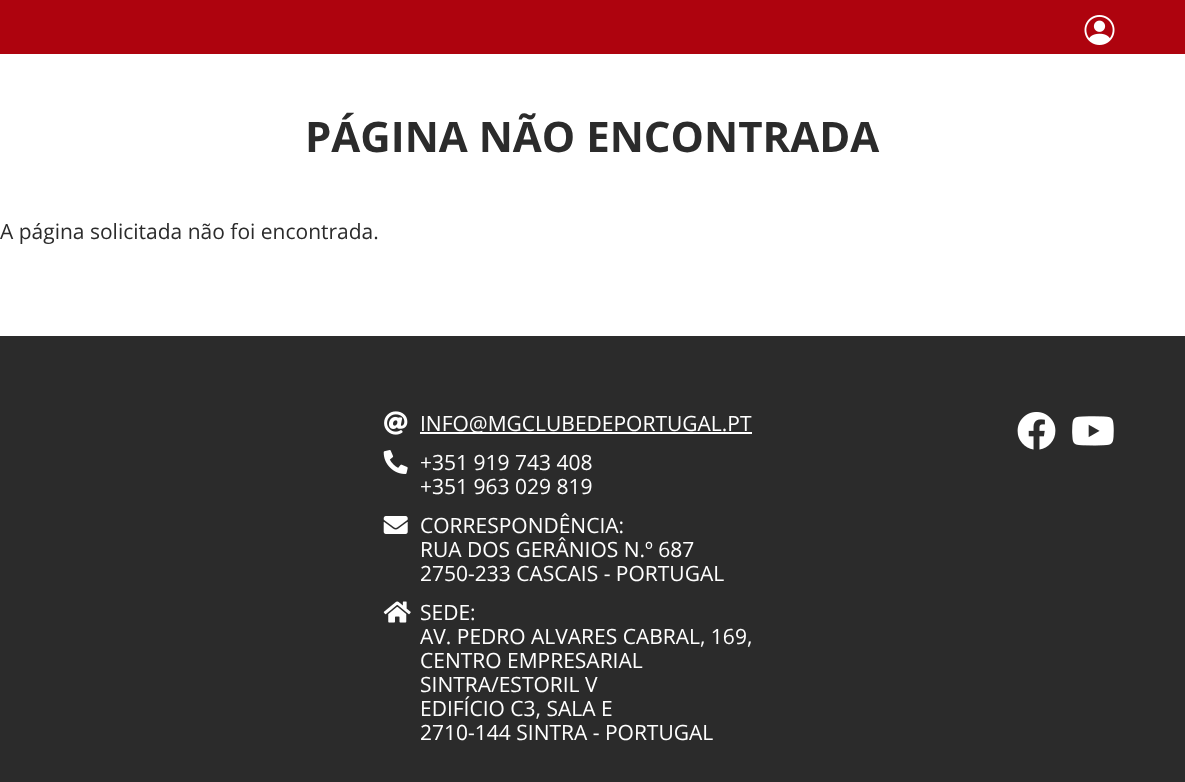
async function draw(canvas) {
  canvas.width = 1185
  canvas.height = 782
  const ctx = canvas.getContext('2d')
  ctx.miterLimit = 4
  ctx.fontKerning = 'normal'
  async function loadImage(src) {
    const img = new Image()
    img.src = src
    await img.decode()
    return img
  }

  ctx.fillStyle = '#fff'
  ctx.fillRect(0, 0, 1185, 782)
  ctx.fillStyle = '#ae030e'
  ctx.fillRect(0, 0, 1185, 54)
  ctx.drawImage(await loadImage('image0.png'), 1084, 15, 31, 30)
  ctx.font = 'bold 42px Open Sans'
  ctx.fillStyle = '#2b2b2b'
  ctx.fillText('PÁGINA NÃO ENCONTRADA', 305, 152)
  ctx.font = '21px Open Sans'
  ctx.fillText('A página solicitada não foi encontrada.', 0, 239)
  ctx.fillRect(0, 336, 1185, 446)
  ctx.drawImage(await loadImage('image1.png'), 384, 411, 24, 24)
  ctx.fillStyle = '#fff'
  ctx.fillRect(420, 432, 332, 2)
  ctx.fillText('INFO@MGCLUBEDEPORTUGAL.PT', 420, 431)
  ctx.drawImage(await loadImage('image2.png'), 383, 450, 25, 24)
  ctx.fillText('+351 919 743 408', 420, 470)
  ctx.fillText('+351 963 029 819', 420, 494)
  ctx.drawImage(await loadImage('image3.png'), 383, 516, 25, 18)
  ctx.fillText('CORRESPONDÊNCIA:', 420, 533)
  ctx.fillText('RUA DOS GERÂNIOS N.º 687', 420, 557)
  ctx.fillText('2750-233 CASCAIS - PORTUGAL', 420, 581)
  ctx.drawImage(await loadImage('image4.png'), 383, 601, 28, 22)
  ctx.fillText('SEDE:', 420, 620)
  ctx.fillText('AV. PEDRO ALVARES CABRAL, 169,', 420, 644)
  ctx.fillText('CENTRO EMPRESARIAL', 420, 668)
  ctx.fillText('SINTRA/ESTORIL V', 420, 692)
  ctx.fillText('EDIFÍCIO C3, SALA E', 420, 716)
  ctx.fillText('2710-144 SINTRA - PORTUGAL', 420, 740)
  ctx.drawImage(await loadImage('image5.png'), 1017, 412, 39, 38)
  ctx.drawImage(await loadImage('image6.png'), 1072, 416, 42, 30)
}

draw(document.querySelector('canvas'))
